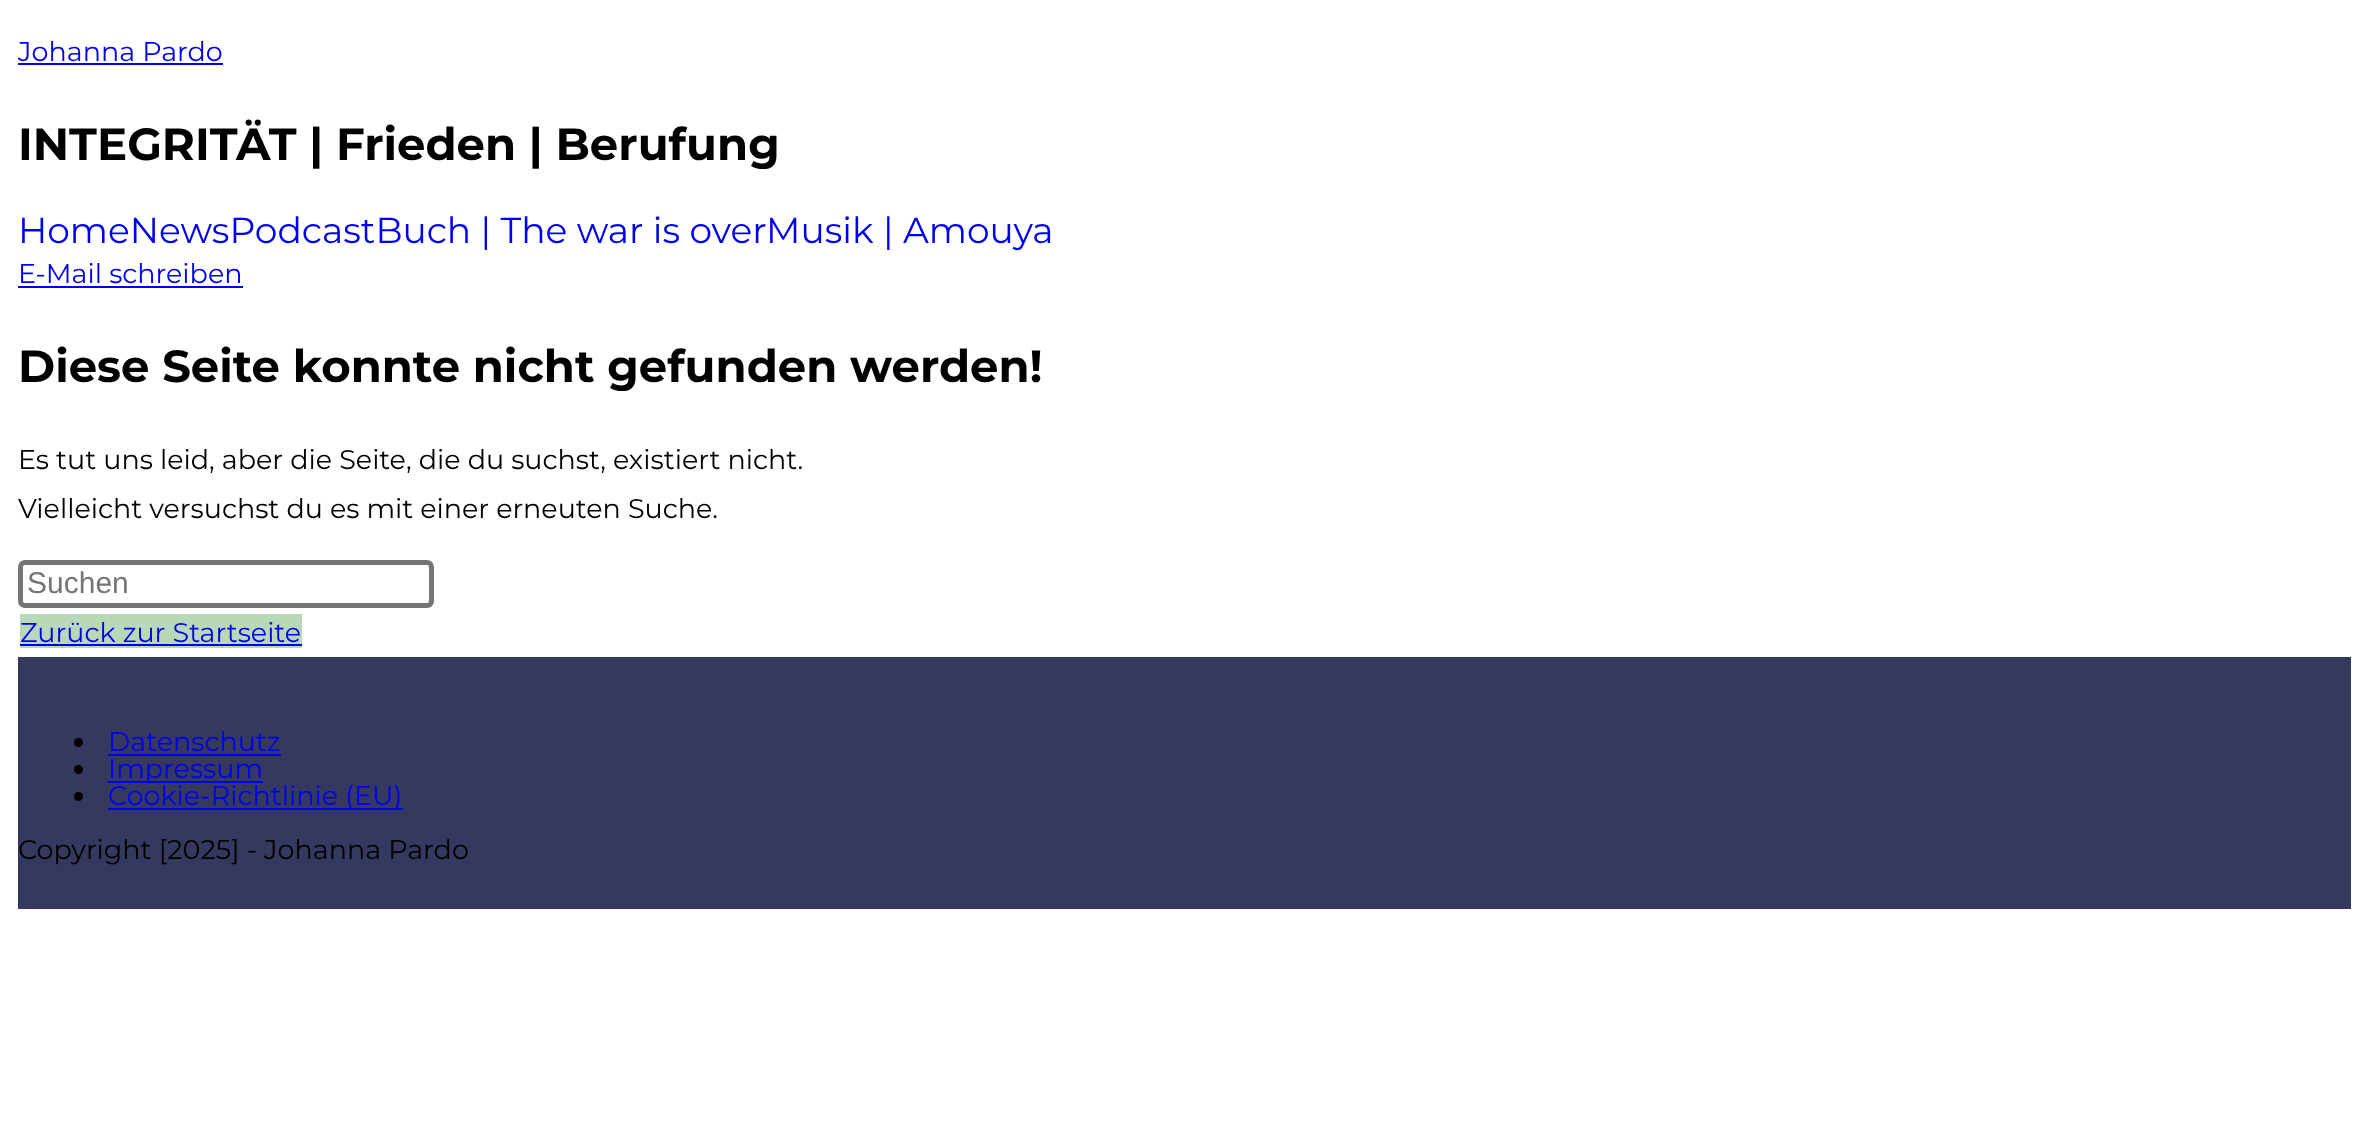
async function draw(canvas) {
  canvas.width = 2369
  canvas.height = 1141
  const ctx = canvas.getContext('2d')
  ctx.miterLimit = 4
  ctx.fontKerning = 'normal'

  ctx.fillStyle = '#fff'
  ctx.fillRect(0, 0, 2369, 1141)
  ctx.font = '27px Montserrat'
  ctx.fillStyle = '#00e'
  ctx.fillText('Johanna Pardo', 18, 61)
  ctx.fillRect(18, 63, 205, 2)
  ctx.font = 'bold 45px Montserrat'
  ctx.fillStyle = '#000'
  ctx.fillText('INTEGRITÄT | Frieden | Berufung', 18, 160)
  ctx.font = '36px Montserrat'
  ctx.fillStyle = '#00e'
  ctx.fillText('HomeNewsPodcastBuch | The war is overMusik | Amouya', 18, 243)
  ctx.font = '27px Montserrat'
  ctx.fillText('E-Mail schreiben', 18, 283)
  ctx.fillRect(18, 286, 225, 2)
  ctx.font = 'bold 45px Montserrat'
  ctx.fillStyle = '#000'
  ctx.fillText('Diese Seite konnte nicht gefunden werden!', 18, 382)
  ctx.font = '27px Montserrat'
  ctx.fillText('Es tut uns leid, aber die Seite, die du suchst, existiert nicht.', 18, 469)
  ctx.fillText('Vielleicht versuchst du es mit einer erneuten Suche.', 18, 518)
  ctx.beginPath()
  ctx.roundRect(20.5, 562.5, 411, 43, 4.5)
  ctx.strokeStyle = '#767676'
  ctx.lineWidth = 5
  ctx.stroke()
  ctx.font = '30px Liberation Sans'
  ctx.fillStyle = '#757575'
  ctx.fillText('Suchen', 27, 593)
  ctx.fillStyle = '#b8d8b8'
  ctx.fillRect(20, 614, 282, 34)
  ctx.font = '27px Montserrat'
  ctx.fillStyle = '#00e'
  ctx.fillText('Zurück zur Startseite', 20, 642)
  ctx.fillRect(20, 644, 282, 2)
  ctx.fillStyle = '#35385f'
  ctx.fillRect(18, 657, 2333, 252)
  ctx.fillStyle = '#000'
  ctx.beginPath()
  ctx.arc(78.5, 742.5, 4.5, 0, 2 * Math.PI)
  ctx.fill()
  ctx.fillStyle = '#00e'
  ctx.fillText('Datenschutz', 108, 751)
  ctx.fillRect(108, 754, 173, 2)
  ctx.fillStyle = '#000'
  ctx.beginPath()
  ctx.arc(78.5, 769.5, 4.5, 0, 2 * Math.PI)
  ctx.fill()
  ctx.fillStyle = '#00e'
  ctx.fillRect(108, 781, 155, 2)
  ctx.fillText('Impressum', 108, 778)
  ctx.fillStyle = '#000'
  ctx.beginPath()
  ctx.arc(78.5, 796.5, 4.5, 0, 2 * Math.PI)
  ctx.fill()
  ctx.fillStyle = '#00e'
  ctx.fillRect(108, 808, 295, 2)
  ctx.fillText('Cookie-Richtlinie (EU)', 108, 805)
  ctx.fillStyle = '#000'
  ctx.fillText('Copyright [2025] - Johanna Pardo', 18, 859)
}

draw(document.querySelector('canvas'))
